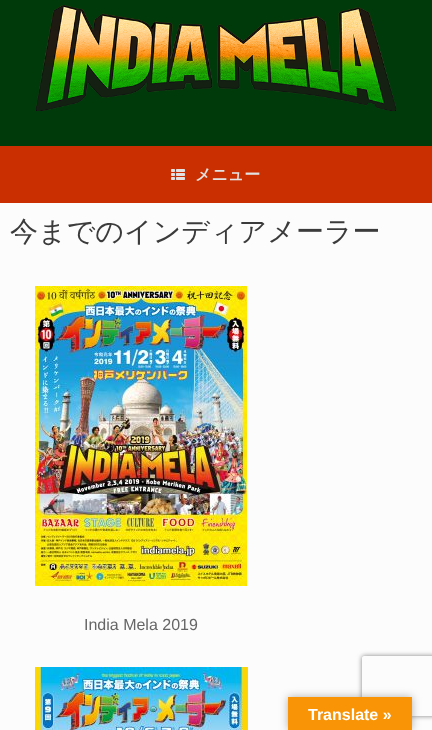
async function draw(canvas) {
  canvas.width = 432
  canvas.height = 730
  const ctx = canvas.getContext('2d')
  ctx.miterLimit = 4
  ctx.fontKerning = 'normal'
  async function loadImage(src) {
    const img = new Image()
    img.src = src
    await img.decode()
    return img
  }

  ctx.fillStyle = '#003a0b'
  ctx.fillRect(0, 0, 432, 730)
  ctx.drawImage(await loadImage('image0.png'), 35, 5, 362, 106)
  ctx.fillStyle = '#c92f00'
  ctx.fillRect(0, 146, 432, 57)
  ctx.drawImage(await loadImage('image1.png'), 171, 169, 14, 11)
  ctx.font = 'bold 16px WenQuanYi Zen Hei'
  ctx.fillStyle = '#e2e2e2'
  ctx.fillText('メニュー', 195, 180)
  ctx.fillStyle = '#fcfcfc'
  ctx.fillRect(0, 203, 432, 527)
  ctx.font = '500 28px WenQuanYi Zen Hei'
  ctx.fillStyle = '#3b3b3b'
  ctx.fillText('今までのインディアメーラー', 10, 241)
  ctx.drawImage(await loadImage('image2.png'), 35, 286, 212, 300)
  ctx.font = '16px Liberation Sans'
  ctx.fillStyle = '#666'
  ctx.fillText('India Mela 2019', 84, 630)
  ctx.drawImage(await loadImage('image3.png'), 35, 667, 213, 63)
  ctx.fillStyle = '#0000004d'
  ctx.filter = 'blur(4.5px)'
  ctx.beginPath()
  ctx.rect(288, 697, 124, 33)
  ctx.fill()
  ctx.filter = 'none'
  ctx.save()
  ctx.beginPath()
  ctx.moveTo(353, 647)
  ctx.lineTo(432, 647)
  ctx.lineTo(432, 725)
  ctx.lineTo(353, 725)
  ctx.closePath()
  ctx.moveTo(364, 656)
  ctx.lineTo(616, 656)
  ctx.bezierCurveTo(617, 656, 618, 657, 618, 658)
  ctx.lineTo(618, 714)
  ctx.bezierCurveTo(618, 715, 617, 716, 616, 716)
  ctx.lineTo(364, 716)
  ctx.bezierCurveTo(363, 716, 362, 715, 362, 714)
  ctx.lineTo(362, 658)
  ctx.bezierCurveTo(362, 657, 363, 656, 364, 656)
  ctx.closePath()
  ctx.clip('evenodd')
  ctx.fillStyle = '#808080'
  ctx.filter = 'blur(2.5px)'
  ctx.beginPath()
  ctx.roundRect(362, 656, 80, 60, 2)
  ctx.fill()
  ctx.filter = 'none'
  ctx.restore()
  ctx.fillStyle = '#f89406'
  ctx.fillRect(288, 697, 124, 33)
  ctx.font = 'bold 16px Liberation Sans'
  ctx.fillStyle = '#fff'
  ctx.fillText('Translate »', 308, 720)
}

draw(document.querySelector('canvas'))
